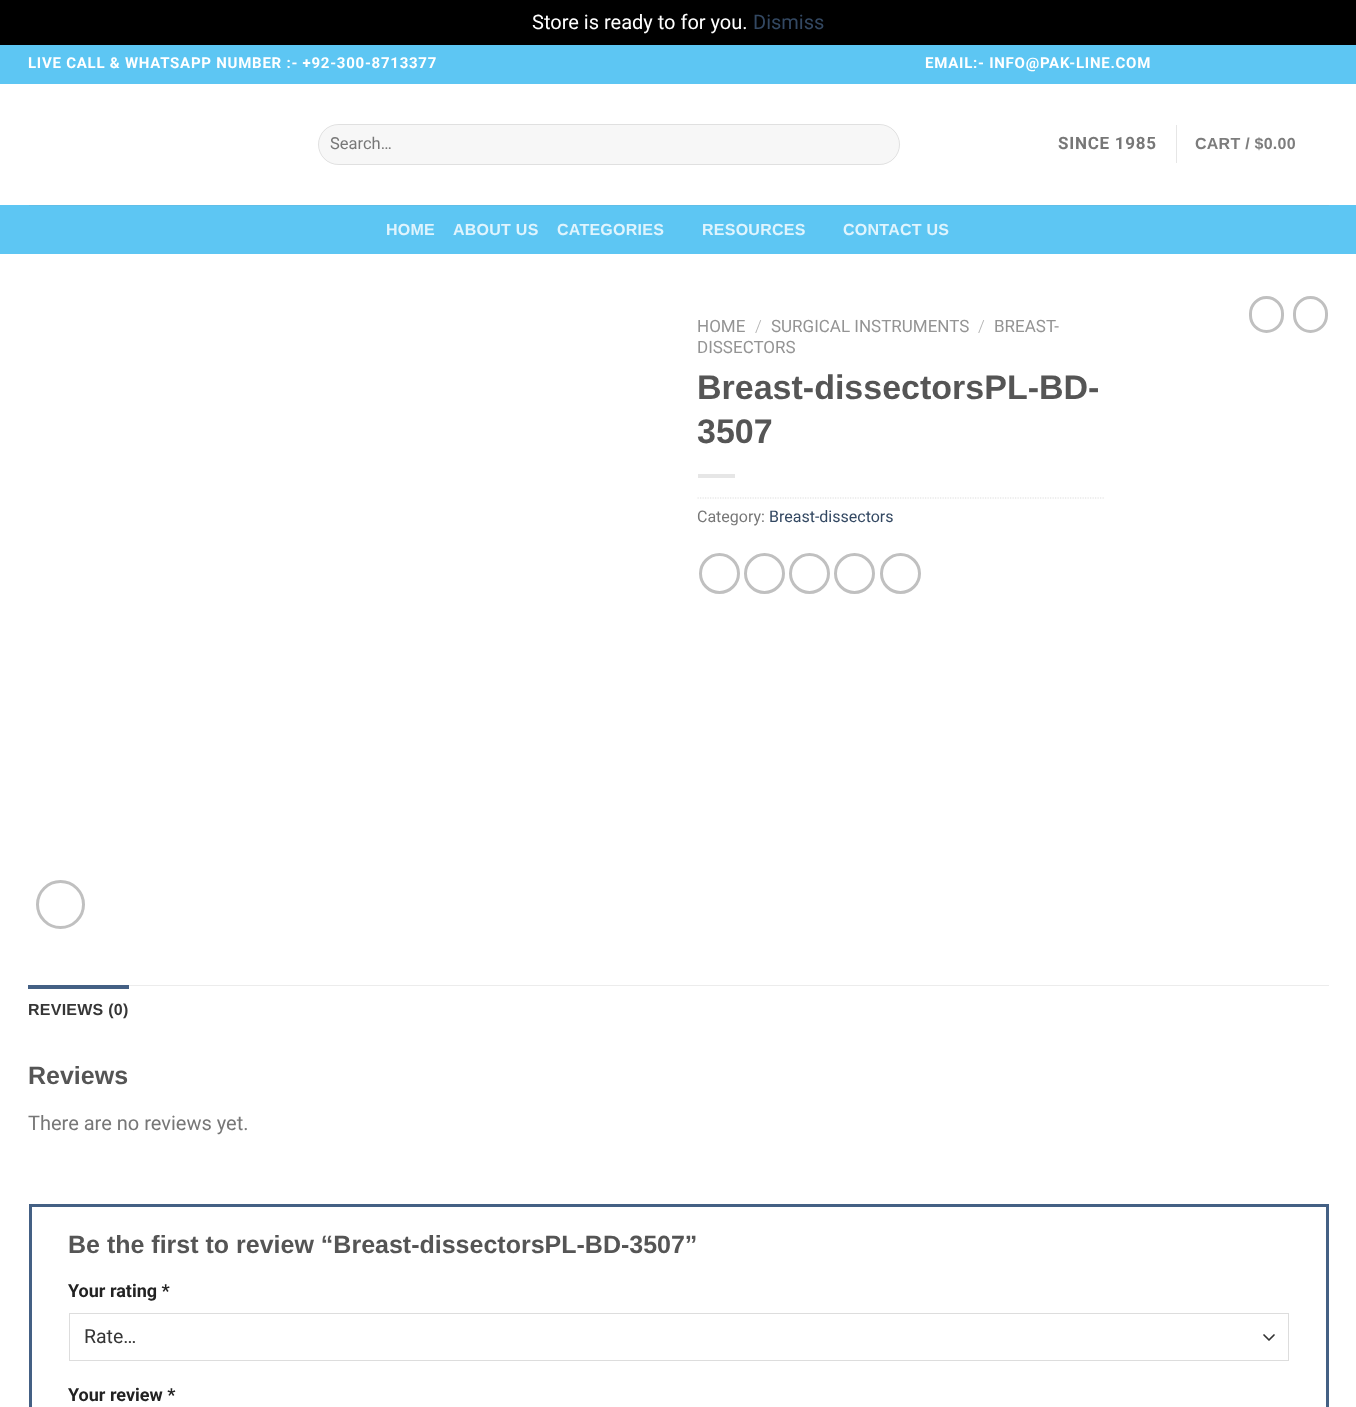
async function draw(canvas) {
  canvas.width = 1356
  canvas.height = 1407
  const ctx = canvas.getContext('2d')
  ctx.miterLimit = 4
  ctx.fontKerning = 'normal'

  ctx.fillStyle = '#000'
  ctx.fillRect(0, 0, 1356, 1407)
  ctx.font = '20px Roboto'
  ctx.fillStyle = '#fff'
  ctx.fillText('Store is ready to for you.', 532, 29)
  ctx.fillStyle = '#334862'
  ctx.fillText('Dismiss', 753, 29)
  ctx.fillStyle = '#fff'
  ctx.fillRect(0, 84, 1356, 1323)
  ctx.fillStyle = '#5dc6f3'
  ctx.fillRect(0, 45, 1356, 39)
  ctx.letterSpacing = '0.75px'
  ctx.font = 'bold 15px Roboto'
  ctx.fillStyle = '#fff'
  ctx.fillText('LIVE CALL & WHATSAPP NUMBER :- +92-300-8713377', 28, 68)
  ctx.fillText('EMAIL:- INFO@PAK-LINE.COM', 925, 68)
  ctx.fillStyle = '#f7f7f7'
  ctx.beginPath()
  ctx.roundRect(318, 124, 582, 41, 20.5)
  ctx.fill()
  ctx.beginPath()
  ctx.roundRect(318.5, 124.5, 581, 40, 20)
  ctx.strokeStyle = '#00000017'
  ctx.stroke()
  ctx.letterSpacing = '0px'
  ctx.font = '16.5px Roboto'
  ctx.fillStyle = '#777'
  ctx.fillText('Search…', 330, 149)
  ctx.letterSpacing = '0.75px'
  ctx.font = 'bold 17px Roboto'
  ctx.fillText('SINCE 1985', 1058, 149)
  ctx.fillStyle = '#e6e6e6'
  ctx.fillRect(1176, 125, 1, 38)
  ctx.letterSpacing = '0.25px'
  ctx.font = 'bold 16px Liberation Sans'
  ctx.fillStyle = '#7d7d7d'
  ctx.fillText('CART / $0.00', 1195, 149)
  ctx.fillStyle = '#5dc6f3'
  ctx.fillRect(0, 205, 1356, 49)
  ctx.fillStyle = '#60bee7'
  ctx.fillRect(29, 205, 1300, 1)
  ctx.fillStyle = '#dff4fd'
  ctx.fillText('HOME', 386, 235)
  ctx.fillText('ABOUT US', 453, 235)
  ctx.fillText('CATEGORIES', 557, 235)
  ctx.fillText('RESOURCES', 702, 235)
  ctx.fillText('CONTACT US', 843, 235)
  ctx.beginPath()
  ctx.roundRect(1250.5, 297.5, 32, 34, 16)
  ctx.strokeStyle = '#c0c0c0'
  ctx.lineWidth = 3
  ctx.stroke()
  ctx.beginPath()
  ctx.roundRect(1294.5, 297.5, 32, 34, 16)
  ctx.stroke()
  ctx.letterSpacing = '0px'
  ctx.font = '17px Roboto'
  ctx.fillStyle = '#949494'
  ctx.fillText('HOME', 697, 332)
  ctx.font = '300 17px Roboto'
  ctx.fillStyle = '#b2b2b2'
  ctx.fillText('/', 755, 332)
  ctx.font = '17px Roboto'
  ctx.fillStyle = '#949494'
  ctx.fillText('SURGICAL INSTRUMENTS', 771, 332)
  ctx.font = '300 17px Roboto'
  ctx.fillStyle = '#b2b2b2'
  ctx.fillText('/', 978, 332)
  ctx.font = '17px Roboto'
  ctx.fillStyle = '#949494'
  ctx.fillText('BREAST-', 994, 332)
  ctx.fillText('DISSECTORS', 697, 353)
  ctx.font = 'bold 34px Liberation Sans'
  ctx.fillStyle = '#555'
  ctx.fillText('Breast-dissectorsPL-BD-', 697, 399)
  ctx.fillText('3507', 697, 443)
  ctx.fillStyle = '#e6e6e6'
  ctx.fillRect(698, 474, 37, 4)
  ctx.beginPath()
  ctx.moveTo(697.5, 498)
  ctx.lineTo(1105, 498)
  ctx.strokeStyle = '#ddd'
  ctx.lineWidth = 1.2
  ctx.setLineDash([1.25, 1.25])
  ctx.stroke()
  ctx.font = '16px Roboto'
  ctx.fillStyle = '#777'
  ctx.fillText('Category:', 697, 522)
  ctx.fillStyle = '#334862'
  ctx.fillText('Breast-dissectors', 769, 522)
  ctx.beginPath()
  ctx.arc(719.5, 573.5, 19, 0, 2 * Math.PI)
  ctx.strokeStyle = '#c0c0c0'
  ctx.lineWidth = 3
  ctx.setLineDash([])
  ctx.stroke()
  ctx.beginPath()
  ctx.arc(764.5, 573.5, 19, 0, 2 * Math.PI)
  ctx.stroke()
  ctx.beginPath()
  ctx.arc(809.5, 573.5, 19, 0, 2 * Math.PI)
  ctx.stroke()
  ctx.beginPath()
  ctx.arc(854.5, 573.5, 19, 0, 2 * Math.PI)
  ctx.stroke()
  ctx.beginPath()
  ctx.arc(900.5, 573.5, 19, 0, 2 * Math.PI)
  ctx.stroke()
  ctx.beginPath()
  ctx.arc(60.5, 904.5, 23, 0, 2 * Math.PI)
  ctx.stroke()
  ctx.fillStyle = '#ececec'
  ctx.fillRect(129, 985, 1200, 1)
  ctx.fillStyle = '#446084'
  ctx.fillRect(28, 985, 101, 4)
  ctx.letterSpacing = '0.25px'
  ctx.font = 'bold 16px Liberation Sans'
  ctx.fillStyle = '#363636'
  ctx.fillText('REVIEWS (0)', 28, 1015)
  ctx.letterSpacing = '0px'
  ctx.font = 'bold 25px Liberation Sans'
  ctx.fillStyle = '#555'
  ctx.fillText('Reviews', 28, 1084)
  ctx.font = '20px Roboto'
  ctx.fillStyle = '#777'
  ctx.fillText('There are no reviews yet.', 28, 1130)
  ctx.strokeStyle = '#446084'
  ctx.strokeRect(30.5, 1205.5, 1297, 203)
  ctx.font = 'bold 25px Liberation Sans'
  ctx.fillStyle = '#555'
  ctx.fillText('Be the first to review “Breast-dissectorsPL-BD-3507”', 68, 1253)
  ctx.font = 'bold 18px Roboto'
  ctx.fillStyle = '#222'
  ctx.fillText('Your rating *', 68, 1297)
  ctx.beginPath()
  ctx.moveTo(1264, 1335)
  ctx.lineTo(1269, 1340)
  ctx.lineTo(1274, 1335)
  ctx.strokeStyle = '#333'
  ctx.lineWidth = 1.7
  ctx.lineCap = 'round'
  ctx.lineJoin = 'round'
  ctx.stroke()
  ctx.strokeStyle = '#ddd'
  ctx.lineWidth = 1
  ctx.lineJoin = 'miter'
  ctx.strokeRect(69.5, 1313.5, 1219, 47)
  ctx.font = '19.5px Roboto'
  ctx.fillStyle = '#363636'
  ctx.fillText('Rate…', 84, 1343)
  ctx.font = 'bold 18px Roboto'
  ctx.fillStyle = '#222'
  ctx.fillText('Your review *', 68, 1401)
}

draw(document.querySelector('canvas'))
